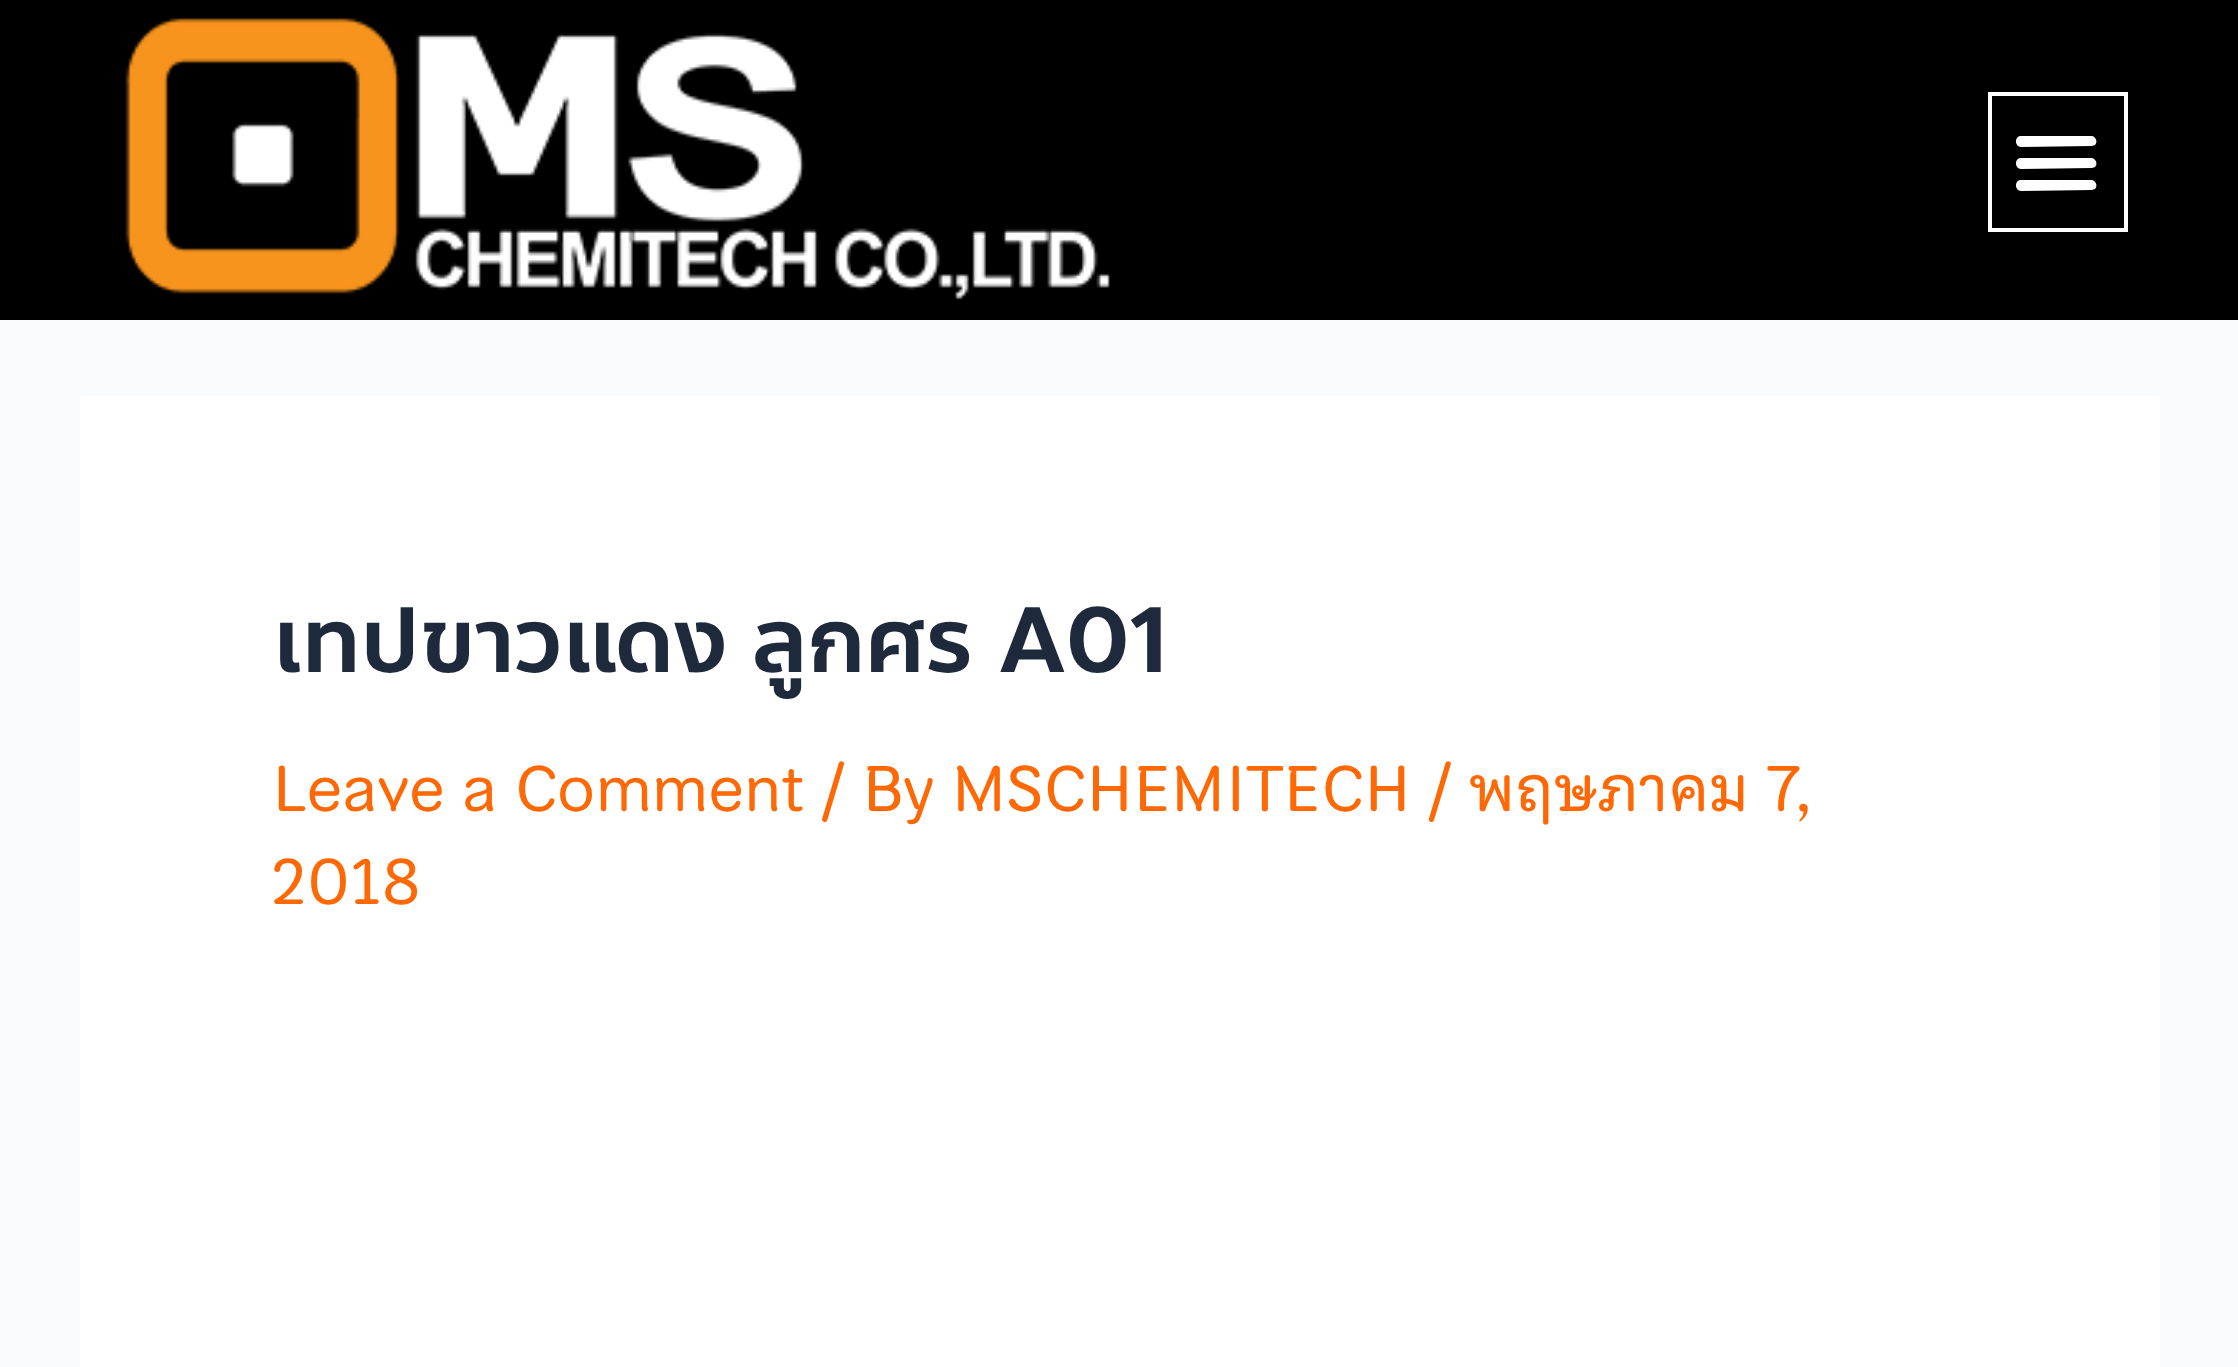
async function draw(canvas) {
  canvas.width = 2238
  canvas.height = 1367
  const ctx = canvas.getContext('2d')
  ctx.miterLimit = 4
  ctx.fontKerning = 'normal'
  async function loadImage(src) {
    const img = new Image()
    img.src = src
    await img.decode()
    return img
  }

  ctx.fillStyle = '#f9fafb'
  ctx.fillRect(0, 0, 2238, 1367)
  ctx.fillStyle = '#000'
  ctx.fillRect(0, 0, 2238, 320)
  ctx.drawImage(await loadImage('image0.png'), 125, 18, 985, 282)
  ctx.strokeStyle = '#fff'
  ctx.lineWidth = 4
  ctx.strokeRect(1990, 94, 136, 136)
  ctx.fillStyle = '#fff'
  ctx.beginPath()
  ctx.moveTo(2021, 147)
  ctx.lineTo(2092, 146)
  ctx.lineTo(2095, 145)
  ctx.bezierCurveTo(2098, 142, 2096, 137, 2092, 136)
  ctx.lineTo(2020, 136)
  ctx.bezierCurveTo(2014, 137, 2015, 147, 2021, 147)
  ctx.closePath()
  ctx.moveTo(2021, 169)
  ctx.lineTo(2092, 168)
  ctx.lineTo(2095, 167)
  ctx.bezierCurveTo(2098, 164, 2096, 159, 2092, 158)
  ctx.lineTo(2020, 158)
  ctx.bezierCurveTo(2014, 159, 2015, 169, 2021, 169)
  ctx.closePath()
  ctx.moveTo(2021, 191)
  ctx.lineTo(2092, 190)
  ctx.lineTo(2095, 189)
  ctx.bezierCurveTo(2098, 186, 2096, 181, 2092, 180)
  ctx.lineTo(2020, 180)
  ctx.bezierCurveTo(2014, 181, 2015, 191, 2021, 191)
  ctx.closePath()
  ctx.fill()
  ctx.fillRect(80, 396, 2080, 971)
  ctx.font = '500 91.25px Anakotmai'
  ctx.fillStyle = '#1e293b'
  ctx.fillText('เทปขาวแดง ลูกศร A01', 272, 672)
  ctx.font = '64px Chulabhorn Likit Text'
  ctx.fillStyle = '#fe6805'
  ctx.fillText('Leave a Comment / By MSCHEMITECH / พฤษภาคม 7,', 272, 811)
  ctx.fillText('2018', 272, 904)
}

draw(document.querySelector('canvas'))
